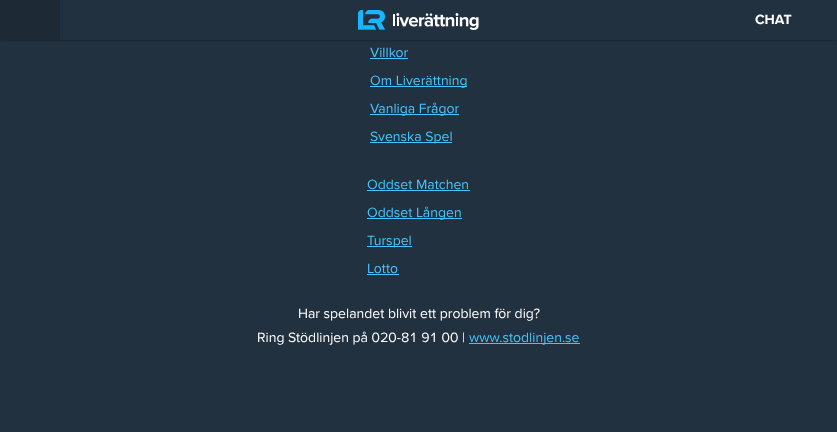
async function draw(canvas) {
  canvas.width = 837
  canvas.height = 432
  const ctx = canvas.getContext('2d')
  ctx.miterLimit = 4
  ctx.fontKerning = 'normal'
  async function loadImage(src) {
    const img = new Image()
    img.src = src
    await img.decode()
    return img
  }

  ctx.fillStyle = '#22313f'
  ctx.fillRect(0, 0, 837, 432)
  ctx.fillStyle = '#00000080'
  ctx.filter = 'blur(1px)'
  ctx.beginPath()
  ctx.rect(0, 0, 837, 40)
  ctx.fill()
  ctx.filter = 'none'
  ctx.fillStyle = '#22313f'
  ctx.fillRect(60, 0, 777, 40)
  ctx.fillStyle = '#1d2a36'
  ctx.fillRect(0, 0, 60, 40)
  ctx.drawImage(await loadImage('image0.png'), 358, 10, 121, 20)
  ctx.font = 'bold 14px Proxima Nova'
  ctx.fillStyle = '#fff'
  ctx.fillText('CHAT', 755, 24)
  ctx.font = '14px Proxima Nova'
  ctx.fillStyle = '#47c4fe'
  ctx.fillText('Villkor', 370, 57)
  ctx.fillRect(370, 58, 38, 1)
  ctx.fillRect(370, 86, 97, 1)
  ctx.fillText('Om Liverättning', 370, 85)
  ctx.fillRect(370, 114, 89, 1)
  ctx.fillText('Vanliga Frågor', 370, 113)
  ctx.fillRect(370, 142, 82, 1)
  ctx.fillText('Svenska Spel', 370, 141)
  ctx.fillText('Oddset Matchen', 367, 189)
  ctx.fillRect(367, 190, 103, 1)
  ctx.fillRect(367, 218, 95, 1)
  ctx.fillText('Oddset Lången', 367, 217)
  ctx.fillRect(367, 246, 45, 1)
  ctx.fillText('Turspel', 367, 245)
  ctx.fillText('Lotto', 367, 273)
  ctx.fillRect(367, 274, 32, 1)
  ctx.fillStyle = '#fff'
  ctx.fillText('Har spelandet blivit ett problem för dig?', 298, 318)
  ctx.font = '14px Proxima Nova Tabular'
  ctx.fillText('Ring Stödlinjen på 020-81 91 00 |', 257, 342)
  ctx.fillStyle = '#47c4fe'
  ctx.fillRect(469, 343, 111, 1)
  ctx.font = '14px Proxima Nova'
  ctx.fillText('www.stodlinjen.se', 469, 342)
}

draw(document.querySelector('canvas'))
